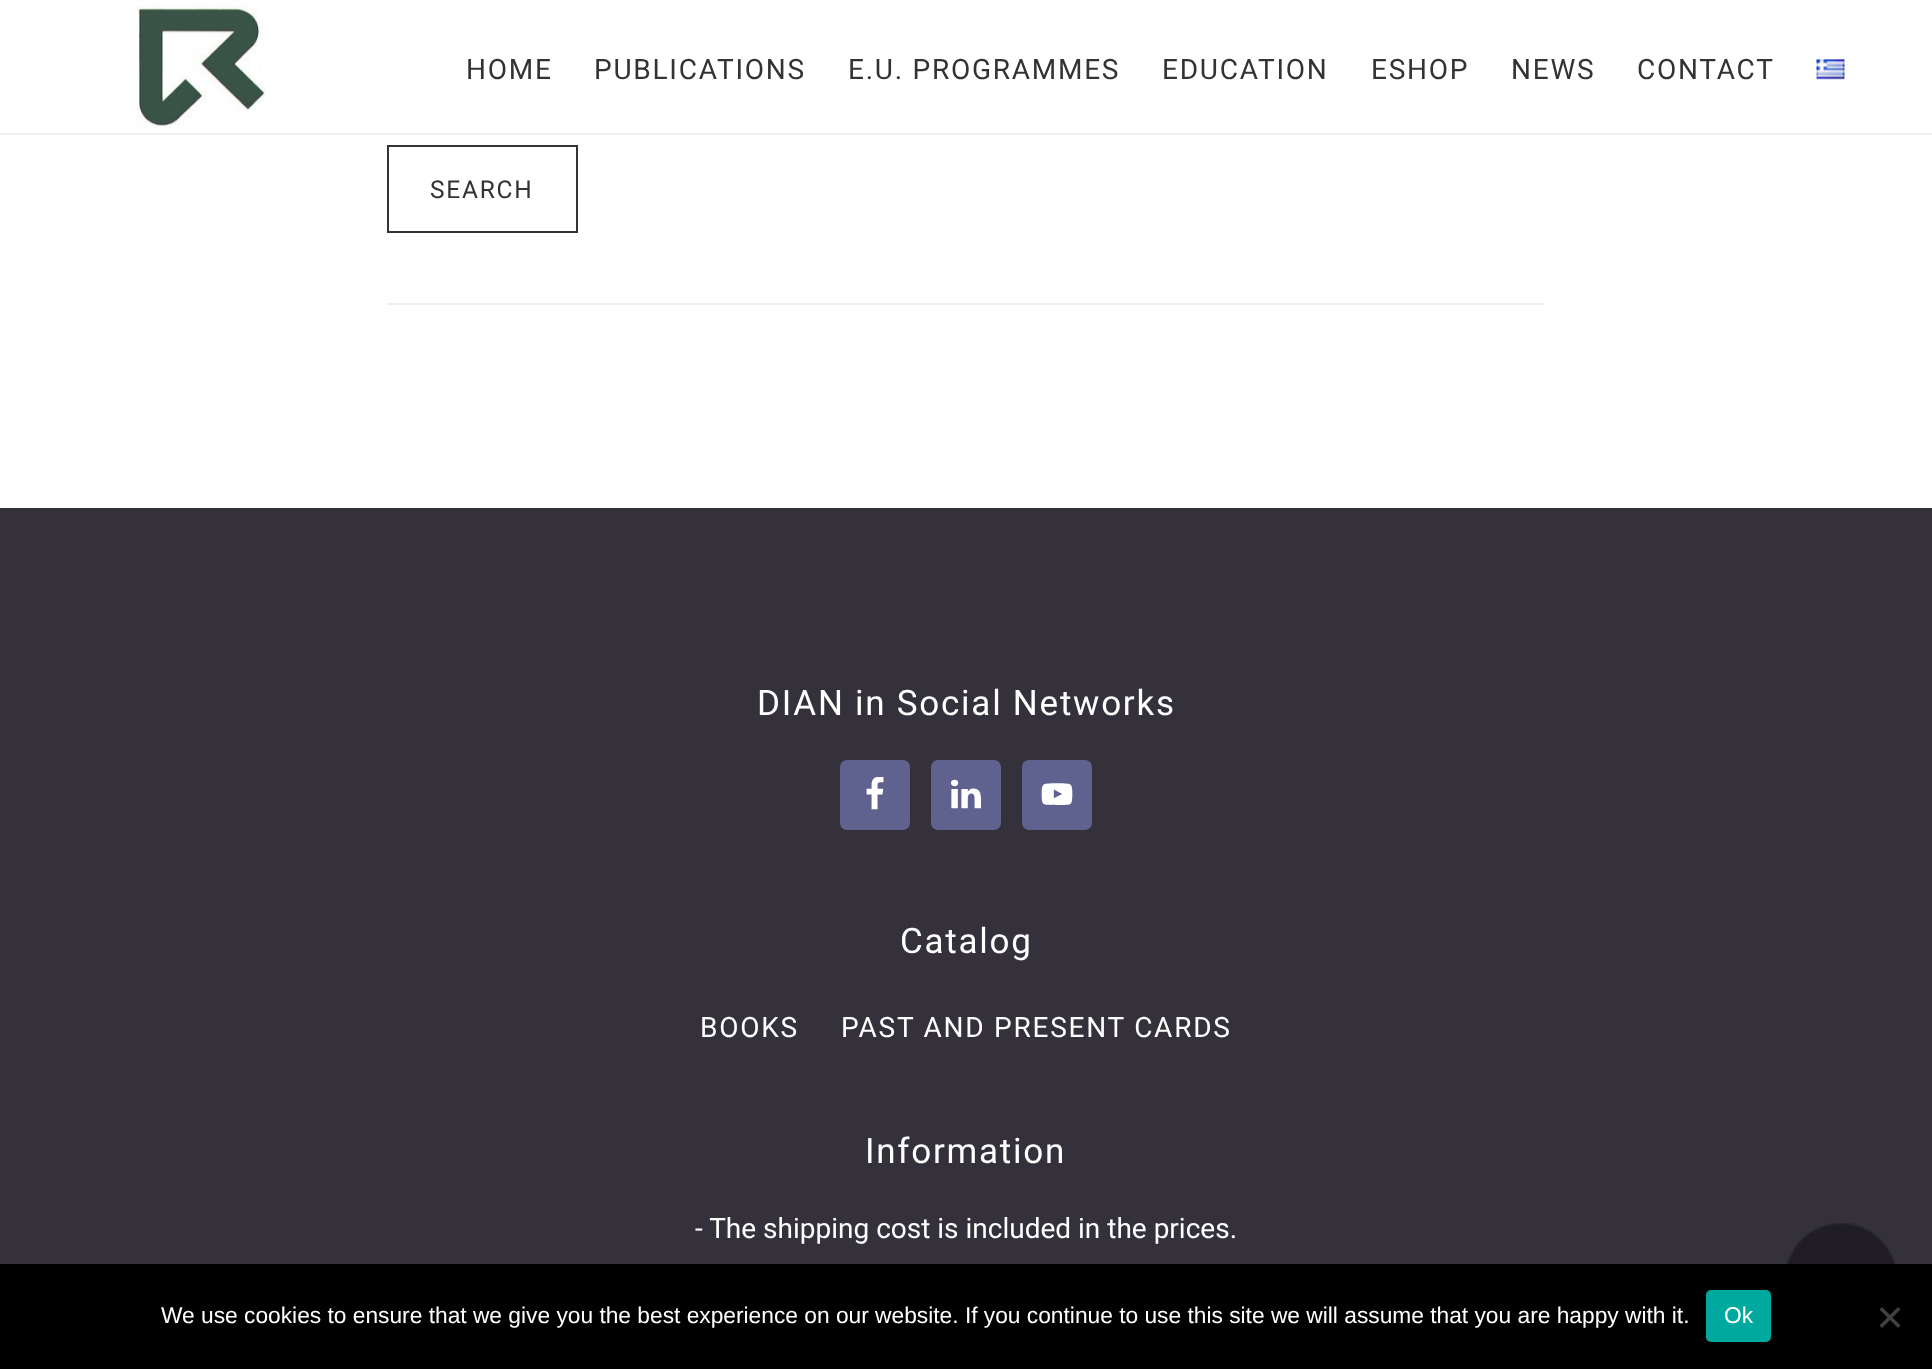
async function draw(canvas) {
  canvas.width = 1932
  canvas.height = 1369
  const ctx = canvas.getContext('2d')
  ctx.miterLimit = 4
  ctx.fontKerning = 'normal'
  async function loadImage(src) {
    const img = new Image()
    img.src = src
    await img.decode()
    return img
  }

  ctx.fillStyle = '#fff'
  ctx.fillRect(0, 0, 1932, 1369)
  ctx.fillStyle = '#eee'
  ctx.fillRect(0, 133, 1932, 2)
  ctx.drawImage(await loadImage('image0.png'), 136, 5, 130, 123)
  ctx.letterSpacing = '1.75px'
  ctx.font = '28px Roboto'
  ctx.fillStyle = '#333'
  ctx.fillText('HOME', 466, 79)
  ctx.fillText('PUBLICATIONS', 594, 79)
  ctx.fillText('E.U. PROGRAMMES', 848, 79)
  ctx.fillText('EDUCATION', 1162, 79)
  ctx.fillText('ESHOP', 1371, 79)
  ctx.fillText('NEWS', 1511, 79)
  ctx.fillText('CONTACT', 1637, 79)
  ctx.drawImage(await loadImage('image1.png'), 1816, 59, 29, 21)
  ctx.fillStyle = '#eee'
  ctx.fillRect(387, 303, 1158, 2)
  ctx.strokeStyle = '#333'
  ctx.lineWidth = 2
  ctx.strokeRect(388, 146, 189, 86)
  ctx.font = '24.5px Roboto'
  ctx.fillStyle = '#333'
  ctx.fillText('SEARCH', 430, 198)
  ctx.fillStyle = '#34313b'
  ctx.fillRect(0, 508, 1932, 756)
  ctx.font = '35px Roboto'
  ctx.fillStyle = '#fff'
  ctx.fillText('DIAN in Social Networks', 757, 715)
  ctx.fillStyle = '#5f628f'
  ctx.beginPath()
  ctx.roundRect(840, 760, 70, 70, 7)
  ctx.fill()
  ctx.drawImage(await loadImage('image2.png'), 866, 777, 18, 33)
  ctx.beginPath()
  ctx.roundRect(931, 760, 70, 70, 7)
  ctx.fill()
  ctx.drawImage(await loadImage('image3.png'), 951, 779, 30, 30)
  ctx.beginPath()
  ctx.roundRect(1022, 760, 70, 70, 7)
  ctx.fill()
  ctx.drawImage(await loadImage('image4.png'), 1041, 783, 32, 23)
  ctx.fillStyle = '#fff'
  ctx.fillText('Catalog', 900, 953)
  ctx.font = '28px Roboto'
  ctx.fillText('BOOKS', 700, 1037)
  ctx.fillText('PAST AND PRESENT CARDS', 841, 1037)
  ctx.font = '35px Roboto'
  ctx.fillText('Information', 865, 1163)
  ctx.letterSpacing = '0px'
  ctx.font = '28px Roboto'
  ctx.fillText('- The shipping cost is included in the prices.', 695, 1238)
  ctx.drawImage(await loadImage('image5.png'), 1786, 1223, 110, 41)
  ctx.fillStyle = '#000'
  ctx.fillRect(0, 1264, 1932, 105)
  ctx.font = '22.75px Liberation Sans'
  ctx.fillStyle = '#fff'
  ctx.fillText('We use cookies to ensure that we give you the best experience on our website. If you continue to use this site we will assume that you are happy with it.', 161, 1323)
  ctx.fillStyle = '#00a99d'
  ctx.beginPath()
  ctx.roundRect(1706, 1290, 65, 52, 5)
  ctx.fill()
  ctx.fillStyle = '#fff'
  ctx.fillText('Ok', 1724, 1323)
  ctx.fillStyle = '#404040'
  ctx.beginPath()
  ctx.moveTo(1898, 1307)
  ctx.lineTo(1900.5, 1309.5)
  ctx.lineTo(1882, 1328)
  ctx.lineTo(1879.5, 1325.5)
  ctx.closePath()
  ctx.fill()
  ctx.beginPath()
  ctx.moveTo(1879.5, 1309.5)
  ctx.lineTo(1882, 1307)
  ctx.lineTo(1900.5, 1325.5)
  ctx.lineTo(1898, 1328)
  ctx.closePath()
  ctx.fill()
}

draw(document.querySelector('canvas'))
